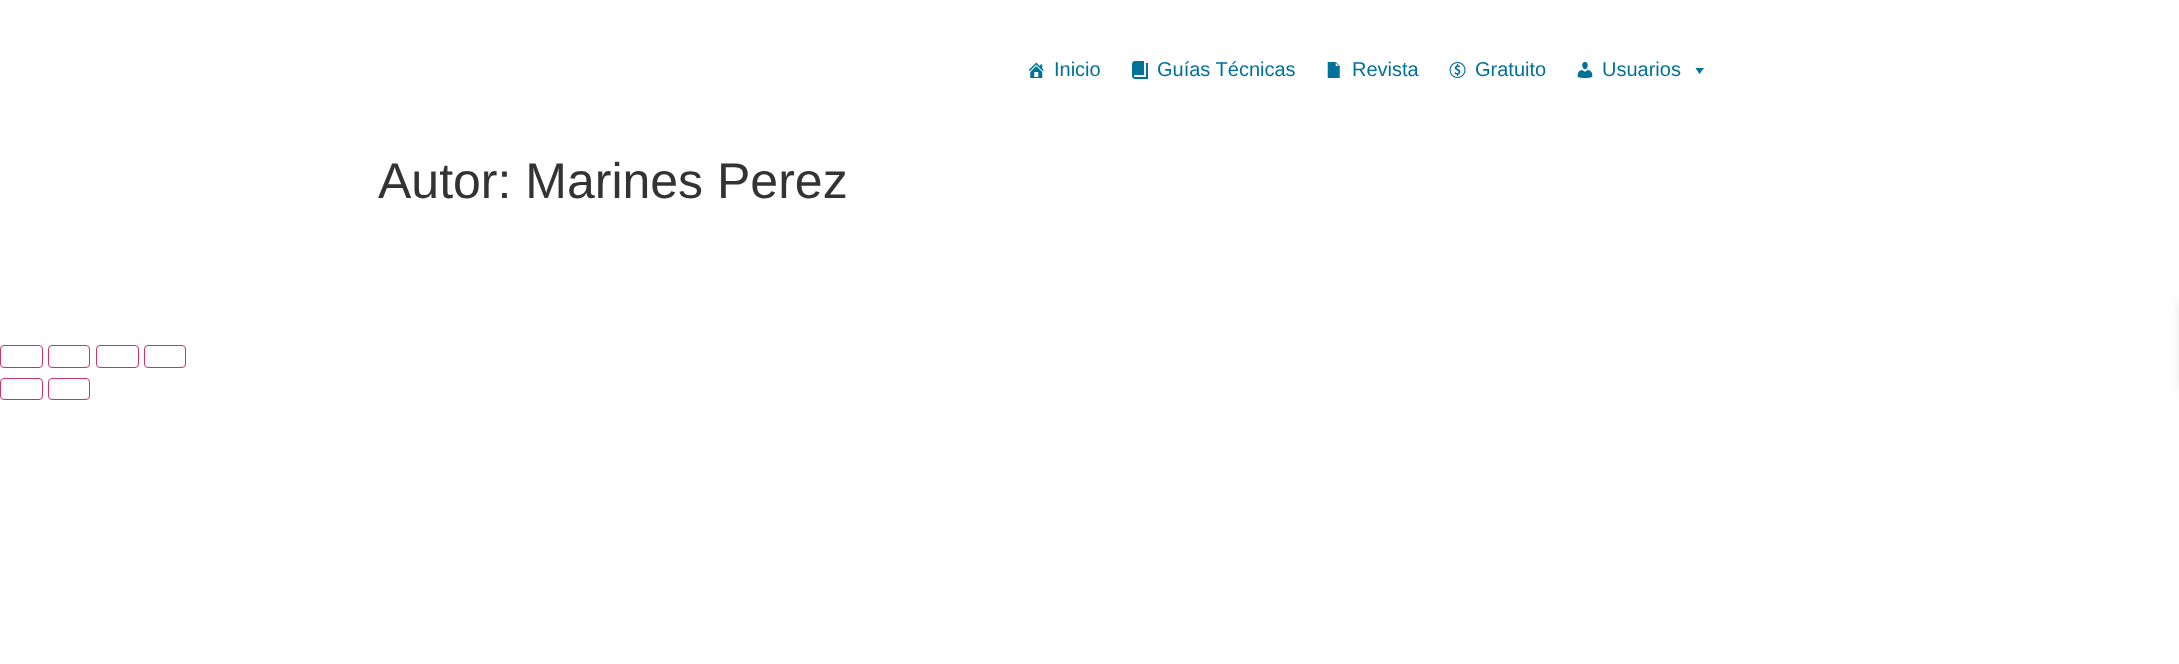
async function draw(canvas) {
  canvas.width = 2179
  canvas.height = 664
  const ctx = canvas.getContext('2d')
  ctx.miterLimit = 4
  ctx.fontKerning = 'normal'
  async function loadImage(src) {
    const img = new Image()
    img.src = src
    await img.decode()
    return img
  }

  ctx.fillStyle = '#fff'
  ctx.fillRect(0, 0, 2179, 664)
  ctx.drawImage(await loadImage('image0.png'), 1028, 62, 16, 16)
  ctx.font = '20px Liberation Sans'
  ctx.fillStyle = '#007198'
  ctx.fillText('Inicio', 1054, 76)
  ctx.drawImage(await loadImage('image1.png'), 1132, 61, 16, 18)
  ctx.fillText('Guías Técnicas', 1157, 76)
  ctx.drawImage(await loadImage('image2.png'), 1327, 62, 13, 16)
  ctx.fillText('Revista', 1352, 76)
  ctx.drawImage(await loadImage('image3.png'), 1449, 62, 17, 16)
  ctx.fillText('Gratuito', 1475, 76)
  ctx.drawImage(await loadImage('image4.png'), 1577, 62, 16, 17)
  ctx.fillText('Usuarios', 1602, 76)
  ctx.beginPath()
  ctx.moveTo(1704, 68)
  ctx.lineTo(1699.5, 74)
  ctx.lineTo(1695.5, 68)
  ctx.closePath()
  ctx.fill()
  ctx.font = '50px Liberation Sans'
  ctx.fillStyle = '#333'
  ctx.fillText('Autor: Marines Perez', 378, 198)
  ctx.beginPath()
  ctx.roundRect(0.5, 345.5, 42, 22, 3.5)
  ctx.strokeStyle = '#c36'
  ctx.stroke()
  ctx.beginPath()
  ctx.roundRect(48.5, 345.5, 41, 22, 3.5)
  ctx.stroke()
  ctx.beginPath()
  ctx.roundRect(96.5, 345.5, 42, 22, 3.5)
  ctx.stroke()
  ctx.beginPath()
  ctx.roundRect(144.5, 345.5, 41, 22, 3.5)
  ctx.stroke()
  ctx.beginPath()
  ctx.roundRect(0.5, 378.5, 42, 21, 3.5)
  ctx.stroke()
  ctx.beginPath()
  ctx.roundRect(48.5, 378.5, 41, 21, 3.5)
  ctx.stroke()
  ctx.fillStyle = '#0000001a'
  ctx.filter = 'blur(6px)'
  ctx.beginPath()
  ctx.rect(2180, 301, 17, 89)
  ctx.fill()
  ctx.filter = 'none'
}

draw(document.querySelector('canvas'))
